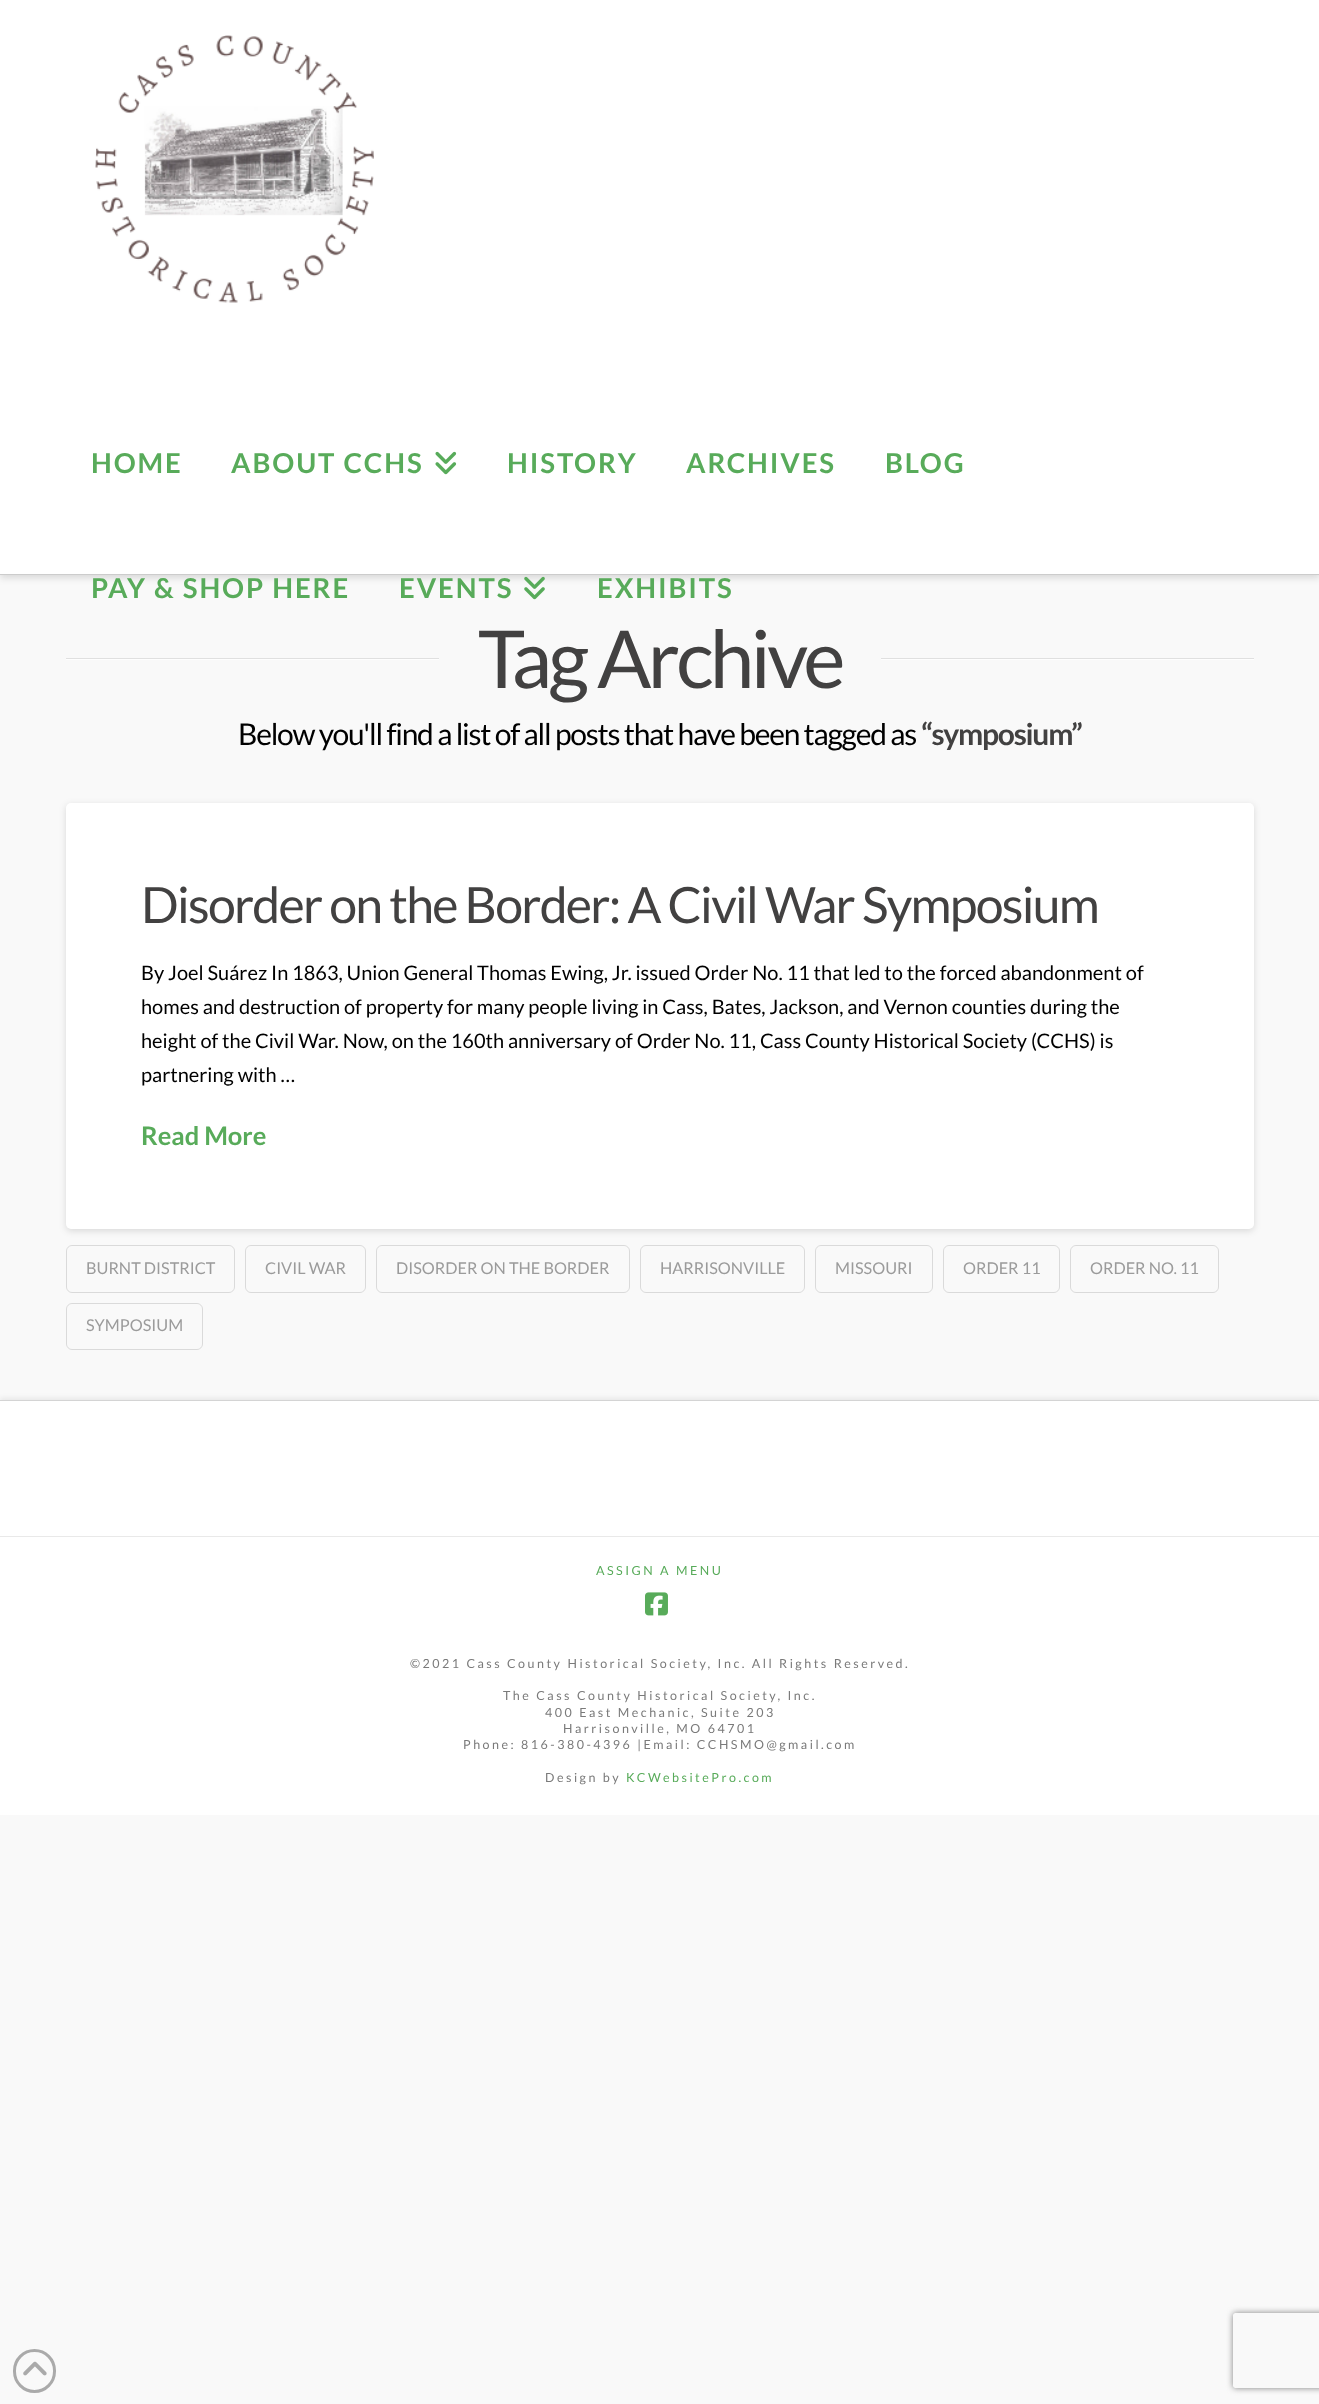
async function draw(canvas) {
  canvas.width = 1319
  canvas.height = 2404
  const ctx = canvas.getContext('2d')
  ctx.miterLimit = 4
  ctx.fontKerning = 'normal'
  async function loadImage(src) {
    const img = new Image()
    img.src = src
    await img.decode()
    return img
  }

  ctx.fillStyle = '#f9f9f9'
  ctx.fillRect(0, 0, 1319, 2404)
  ctx.fillStyle = '#00000021'
  ctx.filter = 'blur(3.5px)'
  ctx.beginPath()
  ctx.rect(0, 3, 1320, 575)
  ctx.fill()
  ctx.filter = 'none'
  ctx.fillStyle = '#fff'
  ctx.fillRect(0, 0, 1319, 574)
  ctx.fillStyle = '#ccc'
  ctx.fillRect(0, 574, 1319, 1)
  ctx.drawImage(await loadImage('image0.png'), 95, 35, 279, 268)
  ctx.letterSpacing = '1.9px'
  ctx.font = 'bold 27.5px Lato'
  ctx.fillStyle = '#58ab5a'
  ctx.fillText('HOME', 91, 473)
  ctx.fillText('ABOUT CCHS', 231, 473)
  ctx.drawImage(await loadImage('image1.png'), 435, 451, 22, 24)
  ctx.fillText('HISTORY', 507, 473)
  ctx.fillText('ARCHIVES', 686, 473)
  ctx.fillText('BLOG', 885, 473)
  ctx.fillText('PAY & SHOP HERE', 91, 598)
  ctx.fillText('EVENTS', 399, 598)
  ctx.drawImage(await loadImage('image2.png'), 524, 576, 21, 24)
  ctx.fillText('EXHIBITS', 597, 598)
  ctx.fillStyle = '#fefefe'
  ctx.fillRect(66, 659, 373, 1)
  ctx.fillStyle = '#e0e0e0'
  ctx.fillRect(66, 658, 373, 1)
  ctx.letterSpacing = '-3.75px'
  ctx.font = '80px Lato'
  ctx.fillStyle = '#424141'
  ctx.fillText('Tag Archive', 478, 688)
  ctx.fillStyle = '#fefefe'
  ctx.fillRect(881, 659, 373, 1)
  ctx.fillStyle = '#e0e0e0'
  ctx.fillRect(881, 658, 373, 1)
  ctx.letterSpacing = '-1.25px'
  ctx.font = '30px Lato'
  ctx.fillStyle = '#000'
  ctx.fillText('Below you\'ll find a list of all posts that have been tagged as', 238, 745)
  ctx.font = 'bold 30px Lato'
  ctx.fillStyle = '#424141'
  ctx.fillText('“symposium”', 921, 745)
  ctx.fillStyle = '#00000021'
  ctx.filter = 'blur(3.5px)'
  ctx.beginPath()
  ctx.roundRect(66, 805, 1188, 426, 5)
  ctx.fill()
  ctx.filter = 'none'
  ctx.fillStyle = '#fff'
  ctx.beginPath()
  ctx.roundRect(66, 803, 1188, 426, 5)
  ctx.fill()
  ctx.letterSpacing = '-1.75px'
  ctx.font = '50px Lato'
  ctx.fillStyle = '#424141'
  ctx.fillText('Disorder on the Border: A Civil War Symposium', 141, 923)
  ctx.letterSpacing = '0px'
  ctx.font = '20px Lato'
  ctx.fillStyle = '#000'
  ctx.fillText('By Joel Suárez In 1863, Union General Thomas Ewing, Jr. issued Order No. 11 that led to the forced abandonment of', 141, 980)
  ctx.fillText('homes and destruction of property for many people living in Cass, Bates, Jackson, and Vernon counties during the', 141, 1014)
  ctx.fillText('height of the Civil War. Now, on the 160th anniversary of Order No. 11, Cass County Historical Society (CCHS) is', 141, 1048)
  ctx.fillText('partnering with …', 141, 1082)
  ctx.font = 'bold 25.5px Lato'
  ctx.fillStyle = '#58ab5a'
  ctx.fillText('Read More', 141, 1145)
  ctx.beginPath()
  ctx.roundRect(66.5, 1245.5, 168, 47, 5.5)
  ctx.strokeStyle = '#0000001f'
  ctx.stroke()
  ctx.font = '16.25px Lato'
  ctx.fillStyle = '#9b9b9b'
  ctx.fillText('BURNT DISTRICT', 86, 1274)
  ctx.beginPath()
  ctx.roundRect(245.5, 1245.5, 120, 47, 5.5)
  ctx.stroke()
  ctx.fillText('CIVIL WAR', 265, 1274)
  ctx.beginPath()
  ctx.roundRect(376.5, 1245.5, 253, 47, 5.5)
  ctx.stroke()
  ctx.fillText('DISORDER ON THE BORDER', 396, 1274)
  ctx.beginPath()
  ctx.roundRect(640.5, 1245.5, 164, 47, 5.5)
  ctx.stroke()
  ctx.fillText('HARRISONVILLE', 660, 1274)
  ctx.beginPath()
  ctx.roundRect(815.5, 1245.5, 117, 47, 5.5)
  ctx.stroke()
  ctx.fillText('MISSOURI', 835, 1274)
  ctx.beginPath()
  ctx.roundRect(943.5, 1245.5, 116, 47, 5.5)
  ctx.stroke()
  ctx.fillText('ORDER 11', 963, 1274)
  ctx.beginPath()
  ctx.roundRect(1070.5, 1245.5, 148, 47, 5.5)
  ctx.stroke()
  ctx.fillText('ORDER NO. 11', 1090, 1274)
  ctx.beginPath()
  ctx.roundRect(66.5, 1303.5, 136, 46, 5.5)
  ctx.stroke()
  ctx.fillText('SYMPOSIUM', 86, 1331)
  ctx.fillStyle = '#00000012'
  ctx.filter = 'blur(2.5px)'
  ctx.beginPath()
  ctx.rect(0, 1398, 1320, 136)
  ctx.fill()
  ctx.filter = 'none'
  ctx.fillStyle = '#fff'
  ctx.fillRect(0, 1401, 1319, 135)
  ctx.fillStyle = '#d4d4d4'
  ctx.fillRect(0, 1400, 1319, 1)
  ctx.fillStyle = '#fff'
  ctx.fillRect(0, 1537, 1319, 278)
  ctx.fillStyle = '#e9e9e9'
  ctx.fillRect(0, 1536, 1319, 1)
  ctx.letterSpacing = '2.5px'
  ctx.font = '12.5px Lato'
  ctx.fillStyle = '#58ab5a'
  ctx.fillText('ASSIGN A MENU', 596, 1575)
  ctx.drawImage(await loadImage('image3.png'), 645, 1592, 23, 24)
  ctx.fillStyle = '#7a7a7a'
  ctx.fillText('©2021 Cass County Historical Society, Inc. All Rights Reserved.', 410, 1668)
  ctx.fillText('The Cass County Historical Society, Inc.', 503, 1700)
  ctx.fillText('400 East Mechanic, Suite 203', 545, 1717)
  ctx.fillText('Harrisonville, MO 64701', 563, 1733)
  ctx.fillText('Phone: 816-380-4396 |Email: CCHSMO@gmail.com', 463, 1749)
  ctx.fillText('Design by', 545, 1782)
  ctx.fillStyle = '#58ab5a'
  ctx.fillText('KCWebsitePro.com', 626, 1782)
  ctx.beginPath()
  ctx.roundRect(14.5, 2350.5, 40, 41, 20)
  ctx.strokeStyle = '#aaa'
  ctx.lineWidth = 3
  ctx.stroke()
  ctx.drawImage(await loadImage('image4.png'), 23, 2361, 24, 15)
  ctx.save()
  ctx.beginPath()
  ctx.moveTo(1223, 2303)
  ctx.lineTo(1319, 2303)
  ctx.lineTo(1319, 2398)
  ctx.lineTo(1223, 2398)
  ctx.closePath()
  ctx.moveTo(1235.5, 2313)
  ctx.lineTo(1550.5, 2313)
  ctx.bezierCurveTo(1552, 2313, 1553, 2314, 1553, 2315.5)
  ctx.lineTo(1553, 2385.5)
  ctx.bezierCurveTo(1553, 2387, 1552, 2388, 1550.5, 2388)
  ctx.lineTo(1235.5, 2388)
  ctx.bezierCurveTo(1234, 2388, 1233, 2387, 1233, 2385.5)
  ctx.lineTo(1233, 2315.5)
  ctx.bezierCurveTo(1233, 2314, 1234, 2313, 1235.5, 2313)
  ctx.closePath()
  ctx.clip('evenodd')
  ctx.fillStyle = '#808080'
  ctx.filter = 'blur(3px)'
  ctx.beginPath()
  ctx.roundRect(1233, 2313, 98, 75, 2.5)
  ctx.fill()
  ctx.filter = 'none'
  ctx.restore()
}

draw(document.querySelector('canvas'))
